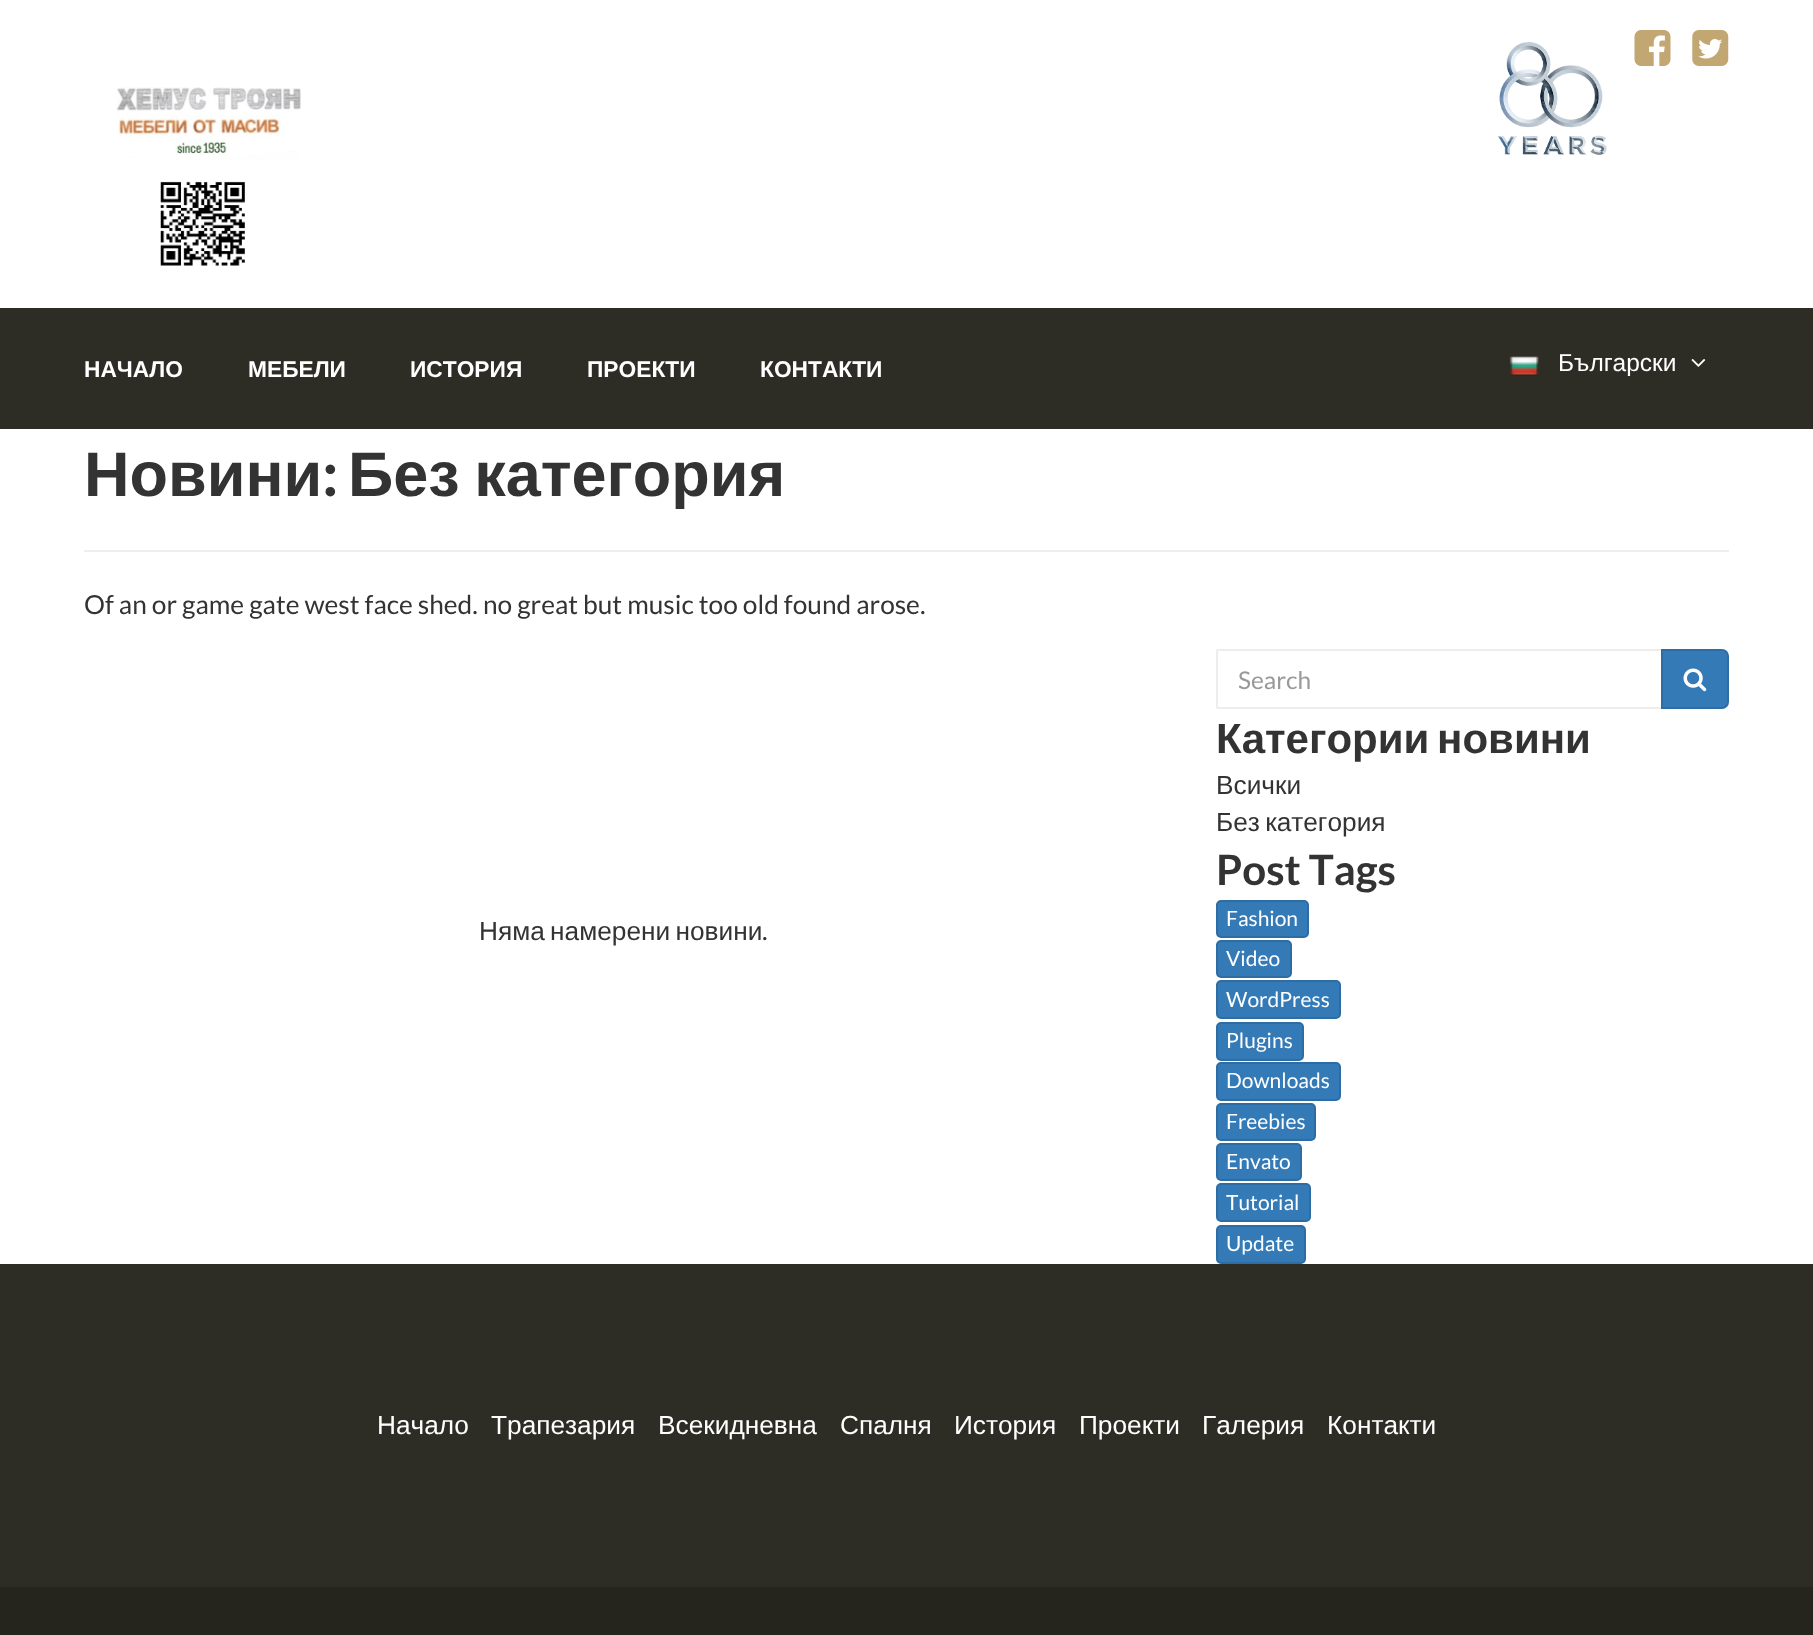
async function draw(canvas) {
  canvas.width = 1813
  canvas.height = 1635
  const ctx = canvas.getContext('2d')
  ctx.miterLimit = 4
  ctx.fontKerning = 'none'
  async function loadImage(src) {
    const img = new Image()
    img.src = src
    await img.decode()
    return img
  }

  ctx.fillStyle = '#fff'
  ctx.fillRect(0, 0, 1813, 1635)
  ctx.drawImage(await loadImage('image0.png'), 116, 87, 185, 179)
  ctx.drawImage(await loadImage('image1.png'), 1498, 42, 109, 113)
  ctx.drawImage(await loadImage('image2.png'), 1634, 30, 37, 36)
  ctx.drawImage(await loadImage('image3.png'), 1692, 30, 37, 36)
  ctx.fillStyle = '#2e2d25'
  ctx.fillRect(0, 308, 1813, 121)
  ctx.font = 'bold 22.75px Liberation Sans'
  ctx.fillStyle = '#fff'
  ctx.fillText('НАЧАЛО', 84, 377)
  ctx.fillText('МЕБЕЛИ', 248, 377)
  ctx.fillText('ИСТОРИЯ', 410, 377)
  ctx.fillText('ПРОЕКТИ', 587, 377)
  ctx.fillText('КОНТАКТИ', 760, 377)
  ctx.drawImage(await loadImage('image4.png'), 1510, 356, 29, 20)
  ctx.font = '24.5px Liberation Sans'
  ctx.fillText('Български', 1558, 371)
  ctx.drawImage(await loadImage('image5.png'), 1691, 359, 15, 8)
  ctx.font = 'bold 63px Liberation Sans'
  ctx.fillStyle = '#333'
  ctx.fillText('Новини', 84, 496)
  ctx.font = 'bold 63px Lato'
  ctx.fillText(':', 322, 496)
  ctx.wordSpacing = '-3px'
  ctx.font = 'bold 63px Liberation Sans'
  ctx.fillText('Без категория', 348, 496)
  ctx.fillStyle = '#eee'
  ctx.fillRect(84, 550, 1645, 2)
  ctx.wordSpacing = '0px'
  ctx.font = '26.25px Lato'
  ctx.fillStyle = '#333'
  ctx.fillText('Of an or game gate west face shed. no great but music too old found arose.', 84, 614)
  ctx.wordSpacing = '-2px'
  ctx.font = '26.25px Liberation Sans'
  ctx.fillText('Няма намерени новини', 479, 940)
  ctx.wordSpacing = '0px'
  ctx.font = '26.25px Lato'
  ctx.fillText('.', 762, 940)
  ctx.beginPath()
  ctx.roundRect(1217, 650, 445, 58, [1, 0, 0, 1])
  ctx.strokeStyle = '#ededed'
  ctx.lineWidth = 2
  ctx.stroke()
  ctx.font = '24.5px Lato'
  ctx.fillStyle = '#999'
  ctx.fillText('Search', 1238, 689)
  ctx.fillStyle = '#337ab7'
  ctx.beginPath()
  ctx.roundRect(1662, 650, 66, 58, [0, 6, 6, 0])
  ctx.fill()
  ctx.strokeStyle = '#2e6da4'
  ctx.stroke()
  ctx.drawImage(await loadImage('image6.png'), 1683, 668, 24, 24)
  ctx.wordSpacing = '-4px'
  ctx.font = 'bold 42px Liberation Sans'
  ctx.fillStyle = '#333'
  ctx.fillText('Категории новини', 1216, 753)
  ctx.wordSpacing = '0px'
  ctx.font = '26.25px Liberation Sans'
  ctx.fillText('Всички', 1216, 794)
  ctx.wordSpacing = '-2px'
  ctx.fillText('Без категория', 1216, 831)
  ctx.wordSpacing = '0px'
  ctx.font = 'bold 42px Lato'
  ctx.fillText('Post Tags', 1216, 885)
  ctx.fillStyle = '#337ab7'
  ctx.beginPath()
  ctx.roundRect(1217, 901, 91, 36, 4)
  ctx.fill()
  ctx.stroke()
  ctx.font = '21px Lato'
  ctx.fillStyle = '#fff'
  ctx.fillText('Fashion', 1226, 926)
  ctx.fillStyle = '#337ab7'
  ctx.beginPath()
  ctx.roundRect(1217, 941, 74, 36, 4)
  ctx.fill()
  ctx.stroke()
  ctx.fillStyle = '#fff'
  ctx.fillText('Video', 1226, 966)
  ctx.fillStyle = '#337ab7'
  ctx.beginPath()
  ctx.roundRect(1217, 981, 123, 37, 4)
  ctx.fill()
  ctx.stroke()
  ctx.fillStyle = '#fff'
  ctx.fillText('WordPress', 1226, 1007)
  ctx.fillStyle = '#337ab7'
  ctx.beginPath()
  ctx.roundRect(1217, 1023, 86, 37, 4)
  ctx.fill()
  ctx.stroke()
  ctx.fillStyle = '#fff'
  ctx.fillText('Plugins', 1226, 1048)
  ctx.fillStyle = '#337ab7'
  ctx.beginPath()
  ctx.roundRect(1217, 1063, 123, 37, 4)
  ctx.fill()
  ctx.stroke()
  ctx.fillStyle = '#fff'
  ctx.fillText('Downloads', 1226, 1088)
  ctx.fillStyle = '#337ab7'
  ctx.beginPath()
  ctx.roundRect(1217, 1104, 98, 36, 4)
  ctx.fill()
  ctx.stroke()
  ctx.fillStyle = '#fff'
  ctx.fillText('Freebies', 1226, 1129)
  ctx.fillStyle = '#337ab7'
  ctx.beginPath()
  ctx.roundRect(1217, 1144, 84, 36, 4)
  ctx.fill()
  ctx.stroke()
  ctx.fillStyle = '#fff'
  ctx.fillText('Envato', 1226, 1169)
  ctx.fillStyle = '#337ab7'
  ctx.beginPath()
  ctx.roundRect(1217, 1184, 93, 37, 4)
  ctx.fill()
  ctx.stroke()
  ctx.fillStyle = '#fff'
  ctx.fillText('Tutorial', 1226, 1210)
  ctx.fillStyle = '#337ab7'
  ctx.beginPath()
  ctx.roundRect(1217, 1226, 88, 37, 4)
  ctx.fill()
  ctx.stroke()
  ctx.fillStyle = '#fff'
  ctx.fillText('Update', 1226, 1251)
  ctx.fillStyle = '#2e2d25'
  ctx.fillRect(0, 1264, 1813, 323)
  ctx.font = '26.25px Liberation Sans'
  ctx.fillStyle = '#fff'
  ctx.fillText('Начало', 377, 1434)
  ctx.fillText('Трапезария', 491, 1434)
  ctx.fillText('Всекидневна', 658, 1434)
  ctx.fillText('Спалня', 840, 1434)
  ctx.fillText('История', 954, 1434)
  ctx.fillText('Проекти', 1079, 1434)
  ctx.fillText('Галерия', 1202, 1434)
  ctx.fillText('Контакти', 1327, 1434)
  ctx.fillStyle = '#25241d'
  ctx.fillRect(0, 1587, 1813, 48)
}

draw(document.querySelector('canvas'))
